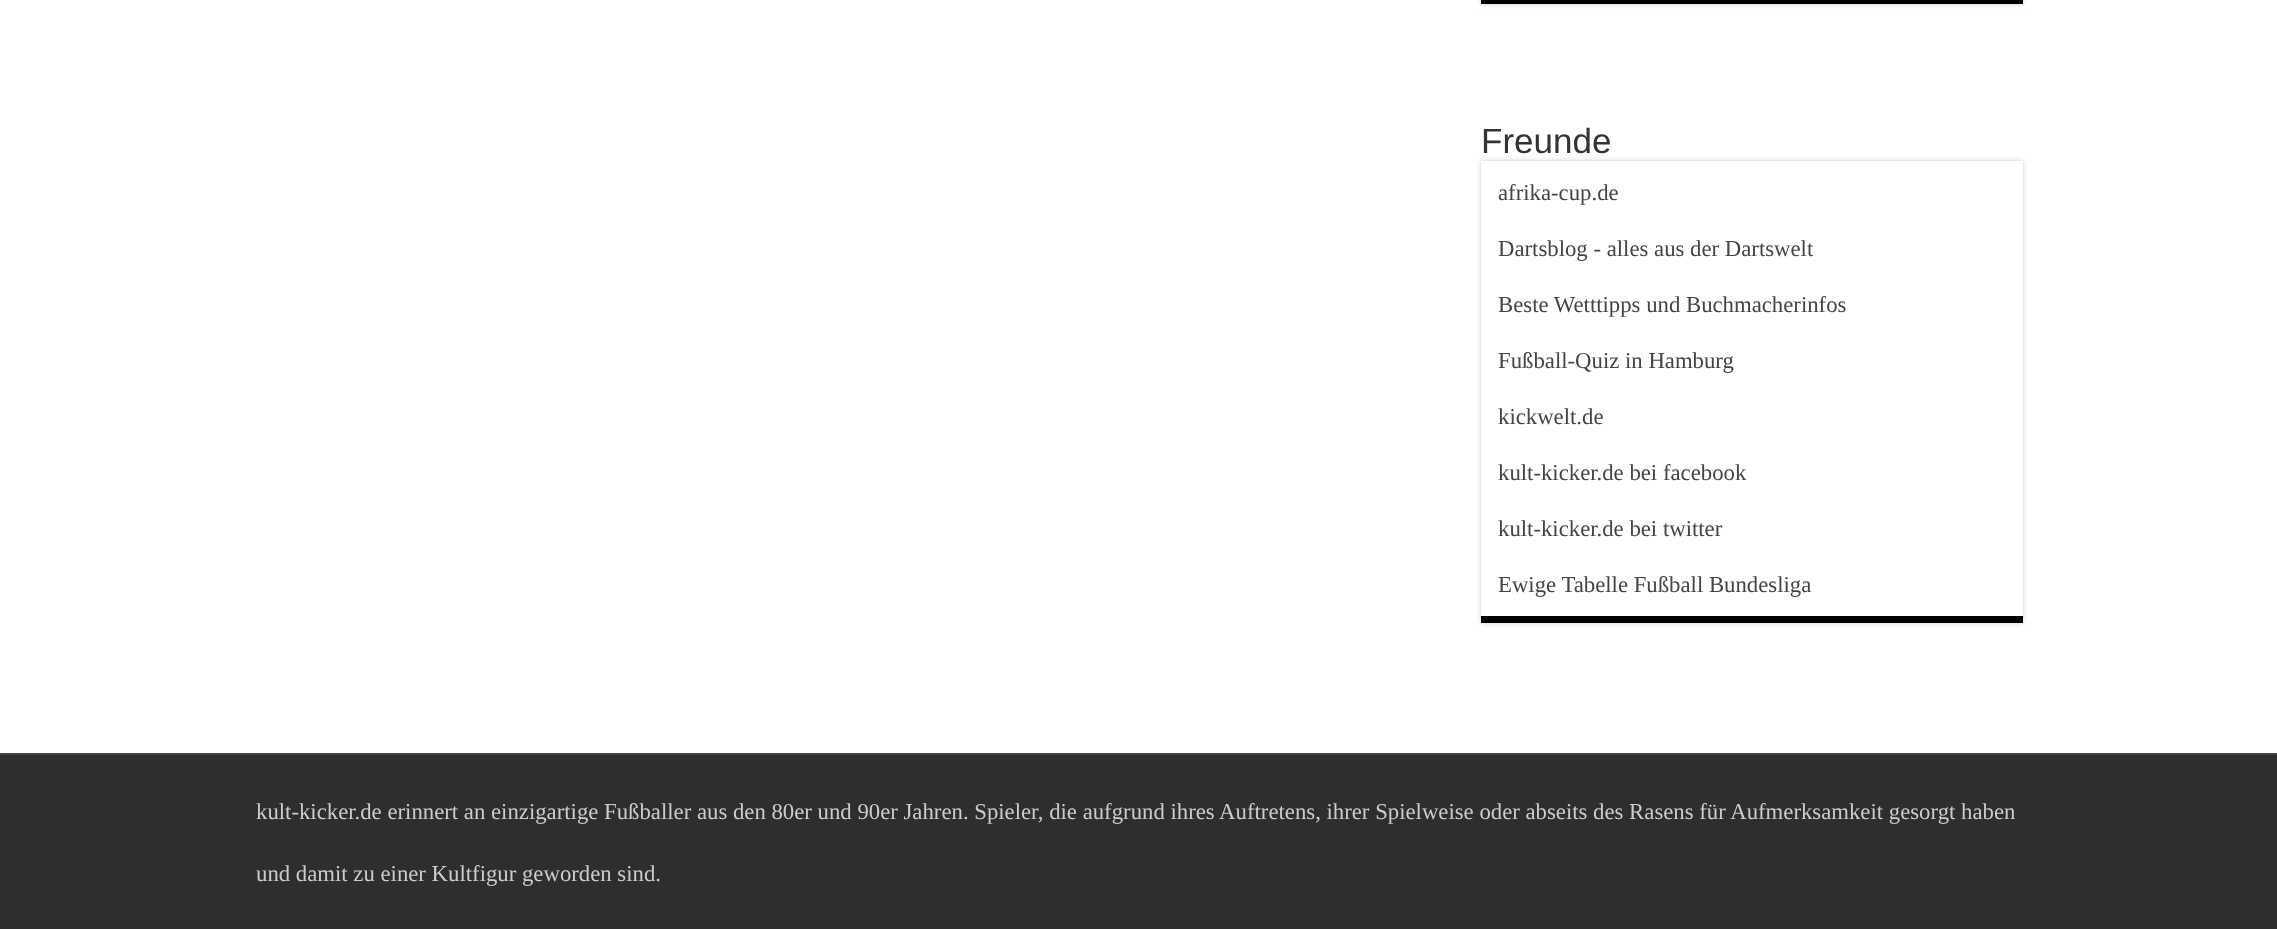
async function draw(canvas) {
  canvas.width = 2277
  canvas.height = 929
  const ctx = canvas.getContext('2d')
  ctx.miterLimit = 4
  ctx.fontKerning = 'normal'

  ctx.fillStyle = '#fff'
  ctx.fillRect(0, 0, 2277, 929)
  ctx.fillStyle = '#cacaca'
  ctx.filter = 'blur(2.5px)'
  ctx.beginPath()
  ctx.rect(1481, -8, 542, 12)
  ctx.fill()
  ctx.filter = 'none'
  ctx.fillStyle = '#000'
  ctx.fillRect(1481, 0, 542, 4)
  ctx.save()
  ctx.beginPath()
  ctx.moveTo(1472, 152)
  ctx.lineTo(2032, 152)
  ctx.lineTo(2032, 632)
  ctx.lineTo(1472, 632)
  ctx.closePath()
  ctx.moveTo(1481, 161)
  ctx.lineTo(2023, 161)
  ctx.lineTo(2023, 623)
  ctx.lineTo(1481, 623)
  ctx.closePath()
  ctx.clip('evenodd')
  ctx.fillStyle = '#cacaca'
  ctx.filter = 'blur(2.5px)'
  ctx.beginPath()
  ctx.rect(1481, 161, 542, 462)
  ctx.fill()
  ctx.filter = 'none'
  ctx.restore()
  ctx.font = '35px Liberation Sans'
  ctx.fillStyle = '#333'
  ctx.fillText('Freunde', 1481, 153)
  ctx.fillStyle = '#000'
  ctx.fillRect(1481, 616, 542, 7)
  ctx.font = '22.75px Liberation Serif'
  ctx.fillStyle = '#444'
  ctx.fillText('afrika-cup.de', 1498, 200)
  ctx.fillText('Dartsblog - alles aus der Dartswelt', 1498, 256)
  ctx.fillText('Beste Wetttipps und Buchmacherinfos', 1498, 312)
  ctx.fillText('Fußball-Quiz in Hamburg', 1498, 368)
  ctx.fillText('kickwelt.de', 1498, 424)
  ctx.fillText('kult-kicker.de bei facebook', 1498, 480)
  ctx.fillText('kult-kicker.de bei twitter', 1498, 536)
  ctx.fillText('Ewige Tabelle Fußball Bundesliga', 1498, 592)
  ctx.fillStyle = '#2e2e2e'
  ctx.fillRect(0, 755, 2277, 174)
  ctx.fillStyle = '#444'
  ctx.fillRect(0, 753, 2277, 2)
  ctx.fillStyle = '#ccc'
  ctx.fillText('kult-kicker.de erinnert an einzigartige Fußballer aus den 80er und 90er Jahren. Spieler, die aufgrund ihres Auftretens, ihrer Spielweise oder abseits des Rasens für Aufmerksamkeit gesorgt haben', 256, 819)
  ctx.fillText('und damit zu einer Kultfigur geworden sind.', 256, 881)
}

draw(document.querySelector('canvas'))
